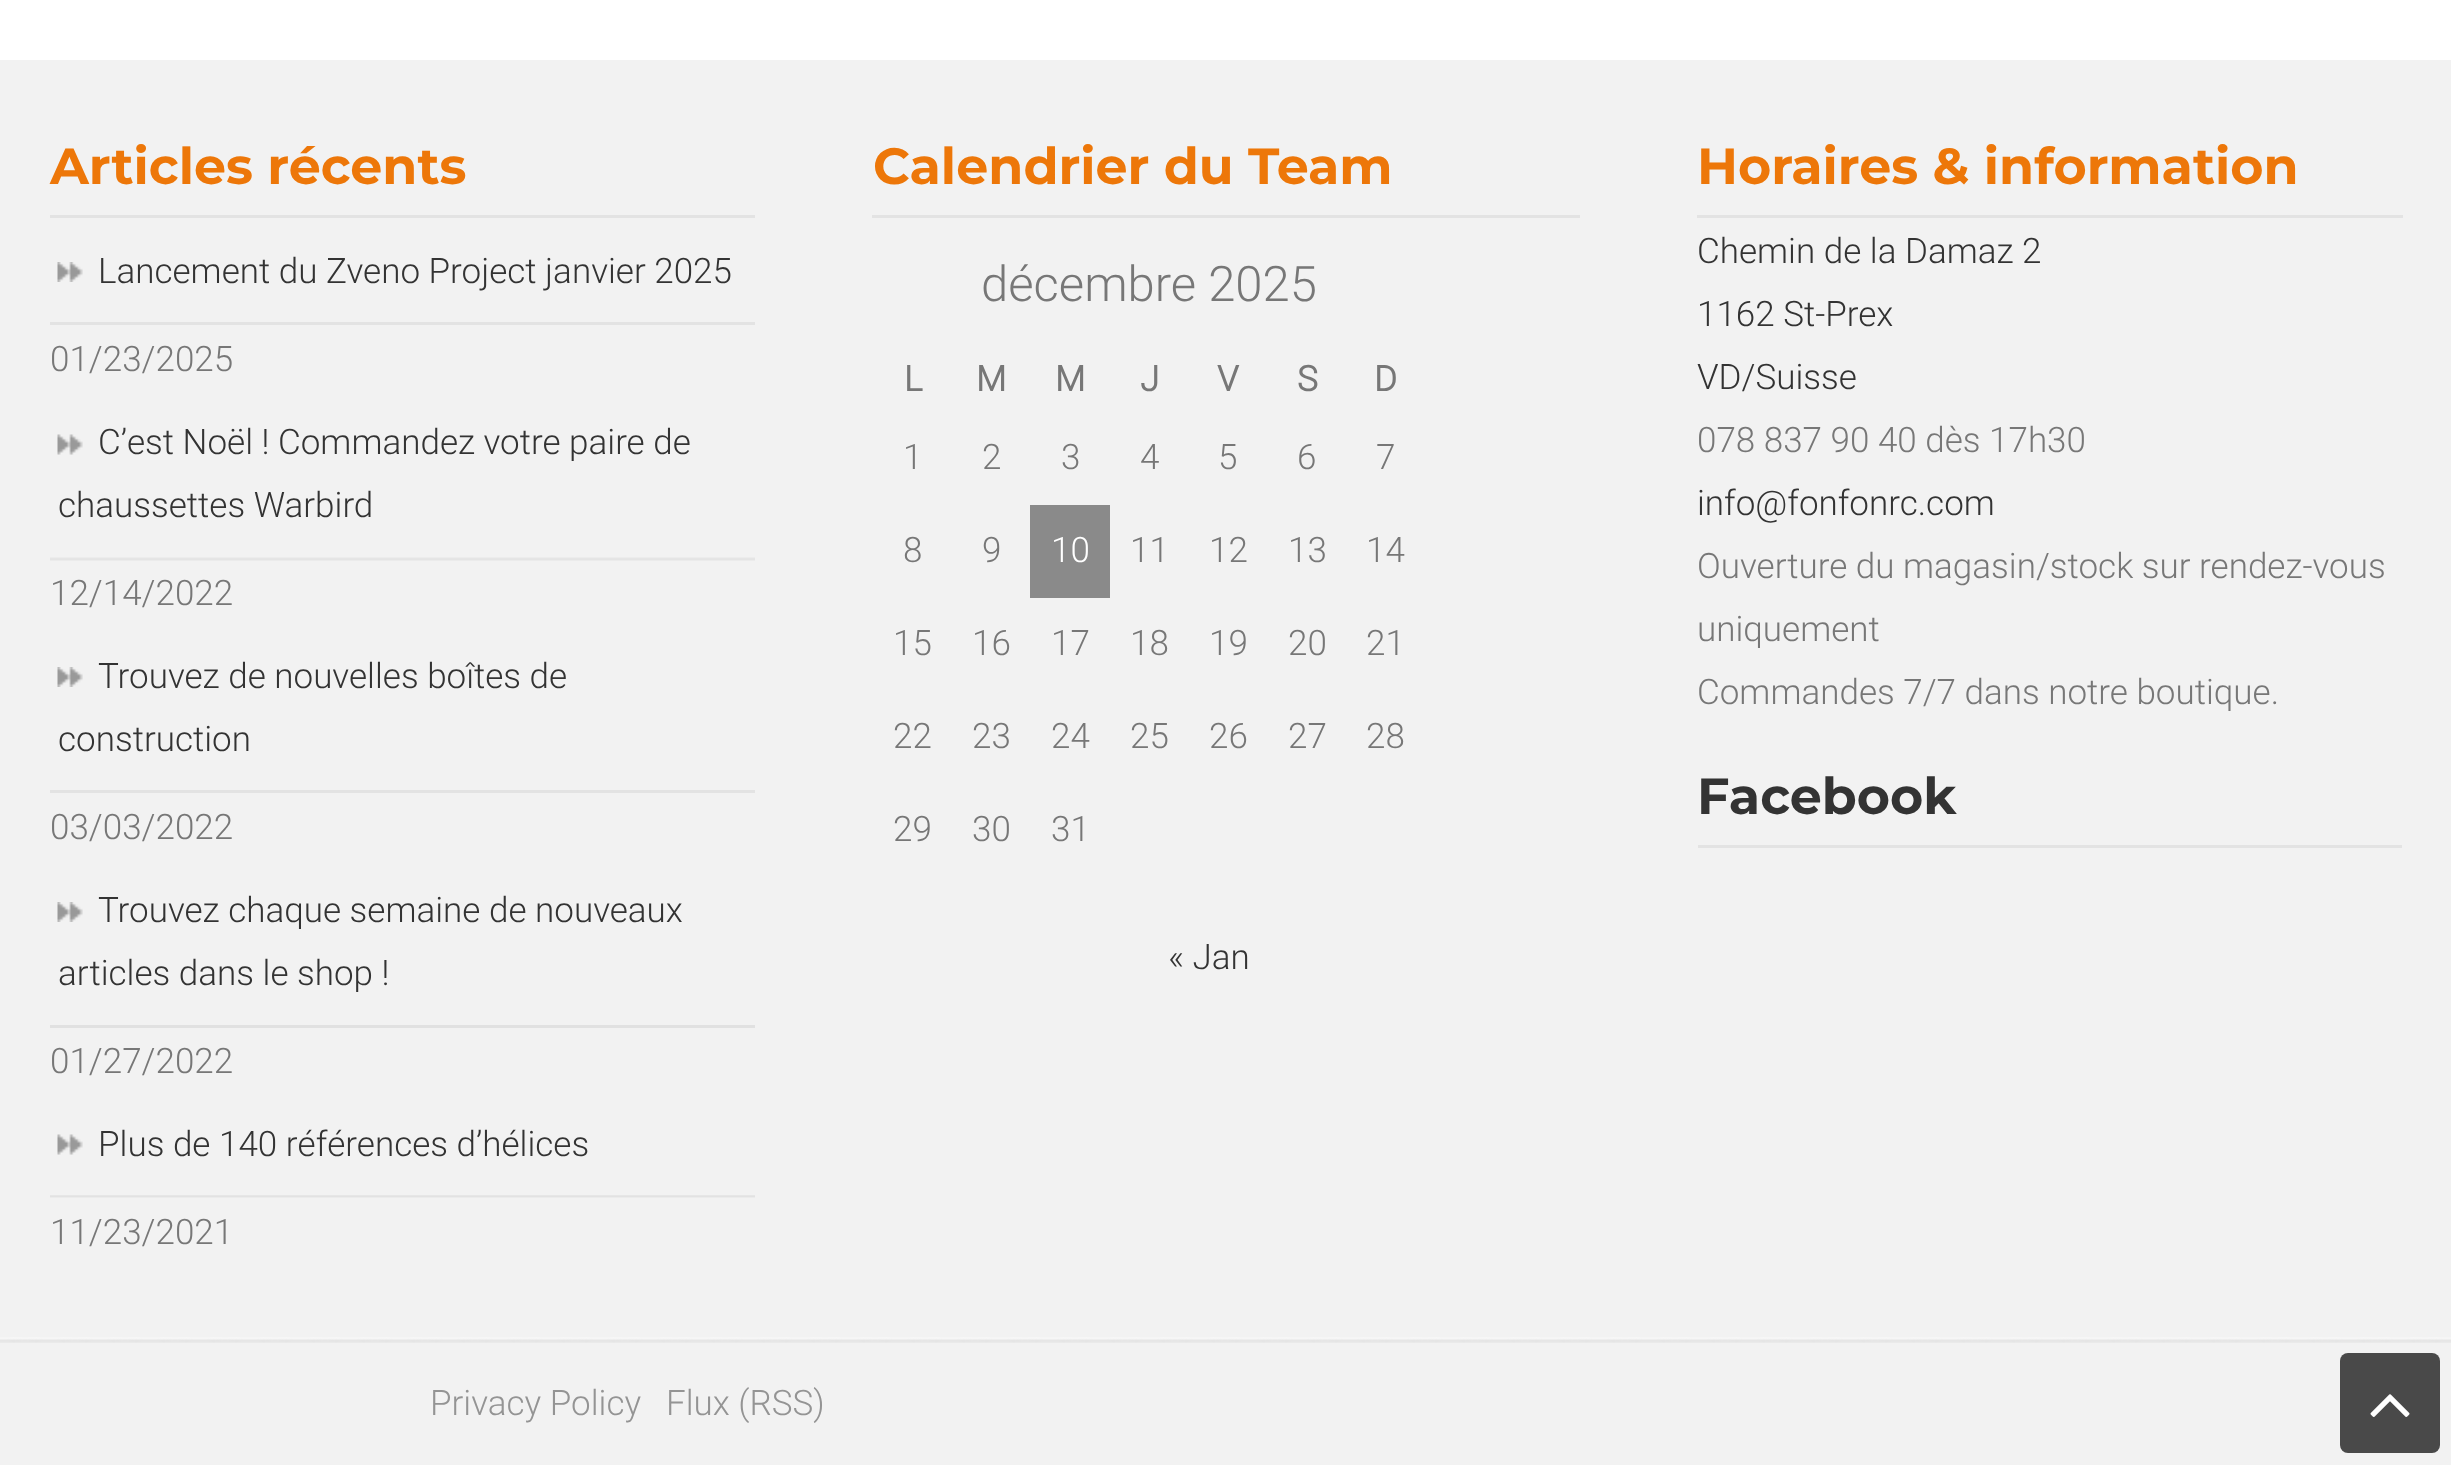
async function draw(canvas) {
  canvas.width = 2451
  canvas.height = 1465
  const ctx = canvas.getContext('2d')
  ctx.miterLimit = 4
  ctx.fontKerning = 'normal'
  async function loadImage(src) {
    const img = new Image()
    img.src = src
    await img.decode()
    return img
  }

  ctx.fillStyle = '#fff'
  ctx.fillRect(0, 0, 2451, 1465)
  ctx.fillStyle = '#f2f2f2'
  ctx.fillRect(0, 60, 2451, 1405)
  ctx.fillStyle = '#e3e3e3'
  ctx.fillRect(50, 215, 705, 3)
  ctx.font = 'bold 50.75px Montserrat'
  ctx.fillStyle = '#ed7709'
  ctx.fillText('Articles récents', 50, 184)
  ctx.fillStyle = '#e3e3e3'
  ctx.fillRect(50, 322, 705, 3)
  ctx.drawImage(await loadImage('image0.png'), 57, 262, 26, 20)
  ctx.font = '300 35px Roboto'
  ctx.fillStyle = '#333'
  ctx.fillText('Lancement du Zveno Project janvier 2025', 98, 283)
  ctx.fillStyle = '#777'
  ctx.fillText('01/23/2025', 50, 371)
  ctx.drawImage(await loadImage('image1.png'), 50, 557, 705, 4)
  ctx.drawImage(await loadImage('image2.png'), 57, 434, 26, 21)
  ctx.fillStyle = '#333'
  ctx.fillText('C’est Noël ! Commandez votre paire de', 98, 454)
  ctx.fillText('chaussettes Warbird', 58, 517)
  ctx.fillStyle = '#777'
  ctx.fillText('12/14/2022', 50, 605)
  ctx.fillStyle = '#e3e3e3'
  ctx.fillRect(50, 790, 705, 3)
  ctx.drawImage(await loadImage('image0.png'), 57, 667, 26, 20)
  ctx.fillStyle = '#333'
  ctx.fillText('Trouvez de nouvelles boîtes de', 98, 688)
  ctx.fillText('construction', 58, 751)
  ctx.fillStyle = '#777'
  ctx.fillText('03/03/2022', 50, 839)
  ctx.fillStyle = '#e1e1e1'
  ctx.fillRect(50, 1025, 705, 3)
  ctx.drawImage(await loadImage('image0.png'), 57, 902, 26, 20)
  ctx.fillStyle = '#333'
  ctx.fillText('Trouvez chaque semaine de nouveaux', 98, 922)
  ctx.fillText('articles dans le shop !', 58, 985)
  ctx.fillStyle = '#777'
  ctx.fillText('01/27/2022', 50, 1073)
  ctx.drawImage(await loadImage('image3.png'), 50, 1195, 705, 3)
  ctx.drawImage(await loadImage('image2.png'), 57, 1134, 26, 21)
  ctx.fillStyle = '#333'
  ctx.fillText('Plus de 140 références d’hélices', 98, 1156)
  ctx.fillStyle = '#777'
  ctx.fillText('11/23/2021', 50, 1244)
  ctx.fillStyle = '#e3e3e3'
  ctx.fillRect(872, 215, 708, 3)
  ctx.font = 'bold 50.75px Montserrat'
  ctx.fillStyle = '#ed7709'
  ctx.fillText('Calendrier du Team', 873, 184)
  ctx.font = '300 49px Roboto'
  ctx.fillStyle = '#777'
  ctx.fillText('décembre 2025', 981, 301)
  ctx.font = 'bold 35px Roboto'
  ctx.fillText('L', 904, 391)
  ctx.fillText('M', 976, 391)
  ctx.fillText('M', 1055, 391)
  ctx.fillText('J', 1140, 391)
  ctx.fillText('V', 1217, 391)
  ctx.fillText('S', 1297, 391)
  ctx.fillText('D', 1374, 391)
  ctx.font = '300 35px Roboto'
  ctx.fillText('1', 903, 469)
  ctx.fillText('2', 982, 469)
  ctx.fillText('3', 1061, 469)
  ctx.fillText('4', 1140, 469)
  ctx.fillText('5', 1218, 469)
  ctx.fillText('6', 1297, 469)
  ctx.fillText('7', 1376, 469)
  ctx.fillText('8', 903, 562)
  ctx.fillText('9', 982, 562)
  ctx.fillStyle = '#8a8a8a'
  ctx.fillRect(1030, 505, 80, 93)
  ctx.fillStyle = '#fff'
  ctx.fillText('10', 1051, 562)
  ctx.fillStyle = '#777'
  ctx.fillText('11', 1130, 562)
  ctx.fillText('12', 1209, 562)
  ctx.fillText('13', 1288, 562)
  ctx.fillText('14', 1366, 562)
  ctx.fillText('15', 893, 655)
  ctx.fillText('16', 972, 655)
  ctx.fillText('17', 1051, 655)
  ctx.fillText('18', 1130, 655)
  ctx.fillText('19', 1209, 655)
  ctx.fillText('20', 1288, 655)
  ctx.fillText('21', 1366, 655)
  ctx.fillText('22', 893, 748)
  ctx.fillText('23', 972, 748)
  ctx.fillText('24', 1051, 748)
  ctx.fillText('25', 1130, 748)
  ctx.fillText('26', 1209, 748)
  ctx.fillText('27', 1288, 748)
  ctx.fillText('28', 1366, 748)
  ctx.fillText('29', 893, 841)
  ctx.fillText('30', 972, 841)
  ctx.fillText('31', 1051, 841)
  ctx.fillStyle = '#333'
  ctx.fillText('« Jan', 1168, 969)
  ctx.fillStyle = '#e3e3e3'
  ctx.fillRect(1697, 215, 706, 3)
  ctx.font = 'bold 50.75px Montserrat'
  ctx.fillStyle = '#ed7709'
  ctx.fillText('Horaires & information', 1697, 184)
  ctx.font = '300 35px Roboto'
  ctx.fillStyle = '#333'
  ctx.fillText('Chemin de la Damaz 2', 1697, 263)
  ctx.fillText('1162 St-Prex', 1697, 326)
  ctx.fillText('VD/Suisse', 1697, 389)
  ctx.fillStyle = '#777'
  ctx.fillText('078 837 90 40 dès 17h30', 1697, 452)
  ctx.fillStyle = '#333'
  ctx.fillText('info@fonfonrc.com', 1697, 515)
  ctx.fillStyle = '#777'
  ctx.fillText('Ouverture du magasin/stock sur rendez-vous', 1697, 578)
  ctx.fillText('uniquement', 1697, 641)
  ctx.fillText('Commandes 7/7 dans notre boutique.', 1697, 704)
  ctx.fillStyle = '#e3e3e3'
  ctx.fillRect(1698, 845, 704, 3)
  ctx.font = 'bold 50.75px Montserrat'
  ctx.fillStyle = '#333'
  ctx.fillText('Facebook', 1697, 814)
  ctx.drawImage(await loadImage('image4.png'), 0, 1337, 2451, 6)
  ctx.font = '300 35px Roboto'
  ctx.fillStyle = '#949494'
  ctx.fillText('Privacy Policy', 430, 1415)
  ctx.fillText('Flux (RSS)', 666, 1415)
  ctx.fillStyle = '#494949'
  ctx.beginPath()
  ctx.roundRect(2340, 1353, 100, 100, 8)
  ctx.fill()
  ctx.drawImage(await loadImage('image5.png'), 2370, 1394, 40, 23)
}

draw(document.querySelector('canvas'))
